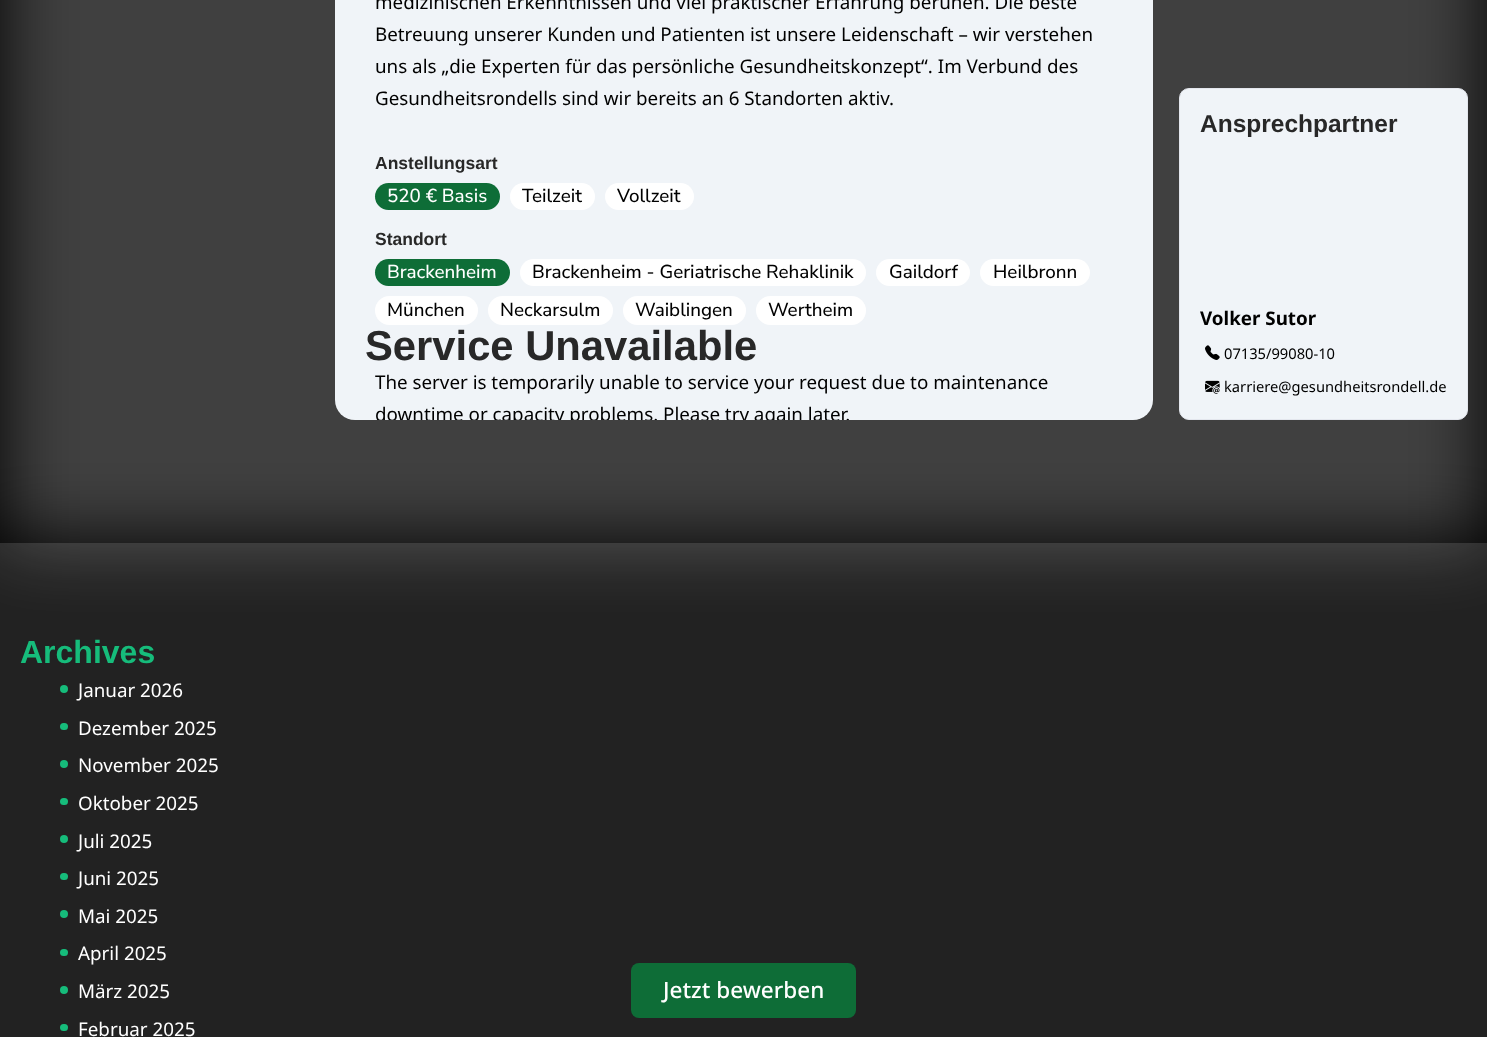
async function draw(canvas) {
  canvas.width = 1487
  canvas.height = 1037
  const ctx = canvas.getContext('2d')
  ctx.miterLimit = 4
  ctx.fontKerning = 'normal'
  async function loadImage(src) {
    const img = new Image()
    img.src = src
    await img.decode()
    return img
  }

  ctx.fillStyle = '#000'
  ctx.fillRect(0, 0, 1487, 1037)
  ctx.fillStyle = '#222'
  ctx.fillRect(0, 543, 1487, 494)
  ctx.fillStyle = '#ffffff40'
  ctx.filter = 'blur(37.5px)'
  ctx.beginPath()
  ctx.rect(0, -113, 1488, 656)
  ctx.fill()
  ctx.filter = 'none'
  ctx.font = 'bold 32px Liberation Sans'
  ctx.fillStyle = '#16bc7b'
  ctx.fillText('Archives', 20, 663)
  ctx.beginPath()
  ctx.arc(64, 689, 4, 0, 2 * Math.PI)
  ctx.fill()
  ctx.font = '18.8px Noto Sans'
  ctx.fillStyle = '#fff'
  ctx.fillText('Januar 2026', 78, 697)
  ctx.fillStyle = '#16bc7b'
  ctx.beginPath()
  ctx.roundRect(60, 723, 8, 7, 3.5)
  ctx.fill()
  ctx.fillStyle = '#fff'
  ctx.fillText('Dezember 2025', 78, 735)
  ctx.fillStyle = '#16bc7b'
  ctx.beginPath()
  ctx.arc(64, 764, 4, 0, 2 * Math.PI)
  ctx.fill()
  ctx.fillStyle = '#fff'
  ctx.fillText('November 2025', 78, 772)
  ctx.fillStyle = '#16bc7b'
  ctx.beginPath()
  ctx.roundRect(60, 798, 8, 7, 3.5)
  ctx.fill()
  ctx.fillStyle = '#fff'
  ctx.fillText('Oktober 2025', 78, 810)
  ctx.fillStyle = '#16bc7b'
  ctx.beginPath()
  ctx.arc(64, 839, 4, 0, 2 * Math.PI)
  ctx.fill()
  ctx.fillStyle = '#fff'
  ctx.fillText('Juli 2025', 78, 848)
  ctx.fillStyle = '#16bc7b'
  ctx.beginPath()
  ctx.roundRect(60, 873, 8, 7, 3.5)
  ctx.fill()
  ctx.fillStyle = '#fff'
  ctx.fillText('Juni 2025', 78, 885)
  ctx.fillStyle = '#16bc7b'
  ctx.beginPath()
  ctx.arc(64, 914, 4, 0, 2 * Math.PI)
  ctx.fill()
  ctx.fillStyle = '#fff'
  ctx.fillText('Mai 2025', 78, 923)
  ctx.fillStyle = '#16bc7b'
  ctx.beginPath()
  ctx.roundRect(60, 949, 8, 7, 3.5)
  ctx.fill()
  ctx.fillStyle = '#fff'
  ctx.fillText('April 2025', 78, 960)
  ctx.fillStyle = '#16bc7b'
  ctx.beginPath()
  ctx.arc(64, 990, 4, 0, 2 * Math.PI)
  ctx.fill()
  ctx.fillStyle = '#fff'
  ctx.fillText('März 2025', 78, 998)
  ctx.fillStyle = '#16bc7b'
  ctx.beginPath()
  ctx.roundRect(60, 1024, 8, 7, 3.5)
  ctx.fill()
  ctx.fillStyle = '#fff'
  ctx.fillText('Februar 2025', 78, 1036)
  ctx.fillStyle = '#f0f4f8'
  ctx.beginPath()
  ctx.roundRect(335, -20, 818, 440, 20)
  ctx.fill()
  ctx.fillStyle = '#000'
  ctx.fillText('medizinischen Erkenntnissen und viel praktischer Erfahrung beruhen. Die beste', 375, 9)
  ctx.fillText('Betreuung unserer Kunden und Patienten ist unsere Leidenschaft – wir verstehen', 375, 41)
  ctx.fillText('uns als „die Experten für das persönliche Gesundheitskonzept“. Im Verbund des', 375, 73)
  ctx.fillText('Gesundheitsrondells sind wir bereits an 6 Standorten aktiv.', 375, 105)
  ctx.font = 'bold 17.5px Liberation Sans'
  ctx.fillStyle = '#282828'
  ctx.fillText('Anstellungsart', 375, 169)
  ctx.fillStyle = '#0e6d37'
  ctx.beginPath()
  ctx.roundRect(375, 183, 125, 27, 13.5)
  ctx.fill()
  ctx.font = '500 18.8px Nunito Sans'
  ctx.fillStyle = '#fff'
  ctx.fillText('520 € Basis', 387, 202)
  ctx.beginPath()
  ctx.roundRect(510, 183, 85, 27, 13.5)
  ctx.fill()
  ctx.fillStyle = '#000'
  ctx.fillText('Teilzeit', 522, 202)
  ctx.fillStyle = '#fff'
  ctx.beginPath()
  ctx.roundRect(605, 183, 89, 27, 13.5)
  ctx.fill()
  ctx.fillStyle = '#000'
  ctx.fillText('Vollzeit', 617, 202)
  ctx.font = 'bold 17.5px Liberation Sans'
  ctx.fillStyle = '#282828'
  ctx.fillText('Standort', 375, 245)
  ctx.fillStyle = '#0e6d37'
  ctx.beginPath()
  ctx.roundRect(375, 259, 135, 27, 13.5)
  ctx.fill()
  ctx.font = '500 18.8px Nunito Sans'
  ctx.fillStyle = '#fff'
  ctx.fillText('Brackenheim', 387, 278)
  ctx.beginPath()
  ctx.roundRect(520, 259, 346, 27, 13.5)
  ctx.fill()
  ctx.fillStyle = '#000'
  ctx.fillText('Brackenheim - Geriatrische Rehaklinik', 532, 278)
  ctx.fillStyle = '#fff'
  ctx.beginPath()
  ctx.roundRect(876, 259, 94, 27, 13.5)
  ctx.fill()
  ctx.fillStyle = '#000'
  ctx.fillText('Gaildorf', 889, 278)
  ctx.fillStyle = '#fff'
  ctx.beginPath()
  ctx.roundRect(980, 259, 110, 27, 13.5)
  ctx.fill()
  ctx.fillStyle = '#000'
  ctx.fillText('Heilbronn', 993, 278)
  ctx.fillStyle = '#fff'
  ctx.beginPath()
  ctx.roundRect(375, 296, 103, 29, 14.5)
  ctx.fill()
  ctx.fillStyle = '#000'
  ctx.fillText('München', 387, 316)
  ctx.fillStyle = '#fff'
  ctx.beginPath()
  ctx.roundRect(488, 296, 125, 29, 14.5)
  ctx.fill()
  ctx.fillStyle = '#000'
  ctx.fillText('Neckarsulm', 500, 316)
  ctx.fillStyle = '#fff'
  ctx.beginPath()
  ctx.roundRect(623, 296, 123, 29, 14.5)
  ctx.fill()
  ctx.fillStyle = '#000'
  ctx.fillText('Waiblingen', 635, 316)
  ctx.fillStyle = '#fff'
  ctx.beginPath()
  ctx.roundRect(756, 296, 110, 29, 14.5)
  ctx.fill()
  ctx.fillStyle = '#000'
  ctx.fillText('Wertheim', 768, 316)
  ctx.font = 'bold 41.75px Liberation Sans'
  ctx.fillStyle = '#282828'
  ctx.fillText('Service Unavailable', 365, 360)
  ctx.font = '18.8px Noto Sans'
  ctx.fillStyle = '#000'
  ctx.fillText('The server is temporarily unable to service your request due to maintenance', 375, 389)
  ctx.save()
  ctx.beginPath()
  ctx.roundRect(335, -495, 818, 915, 20)
  ctx.clip()
  ctx.fillText('downtime or capacity problems. Please try again later.', 375, 421)
  ctx.restore()
  ctx.fillStyle = '#0e6d37'
  ctx.beginPath()
  ctx.roundRect(631, 963, 225, 55, 8)
  ctx.fill()
  ctx.font = '500 22.5px Noto Sans'
  ctx.fillStyle = '#fff'
  ctx.fillText('Jetzt bewerben', 663, 998)
  ctx.fillStyle = '#f0f4f8'
  ctx.beginPath()
  ctx.roundRect(1179.5, 88.5, 288, 331, 9.5)
  ctx.fill()
  ctx.strokeStyle = '#e3e6ed'
  ctx.stroke()
  ctx.font = 'bold 24.5px Liberation Sans'
  ctx.fillStyle = '#282828'
  ctx.fillText('Ansprechpartner', 1200, 132)
  ctx.font = 'bold 18.8px Noto Sans'
  ctx.fillStyle = '#000'
  ctx.fillText('Volker Sutor', 1200, 325)
  ctx.drawImage(await loadImage('image0.png'), 1205, 345, 15, 15)
  ctx.font = '14.7px Noto Sans'
  ctx.fillText('07135/99080-10', 1224, 359)
  ctx.drawImage(await loadImage('image1.png'), 1205, 380, 15, 14)
  ctx.fillText('karriere@gesundheitsrondell.de', 1224, 392)
}

draw(document.querySelector('canvas'))
